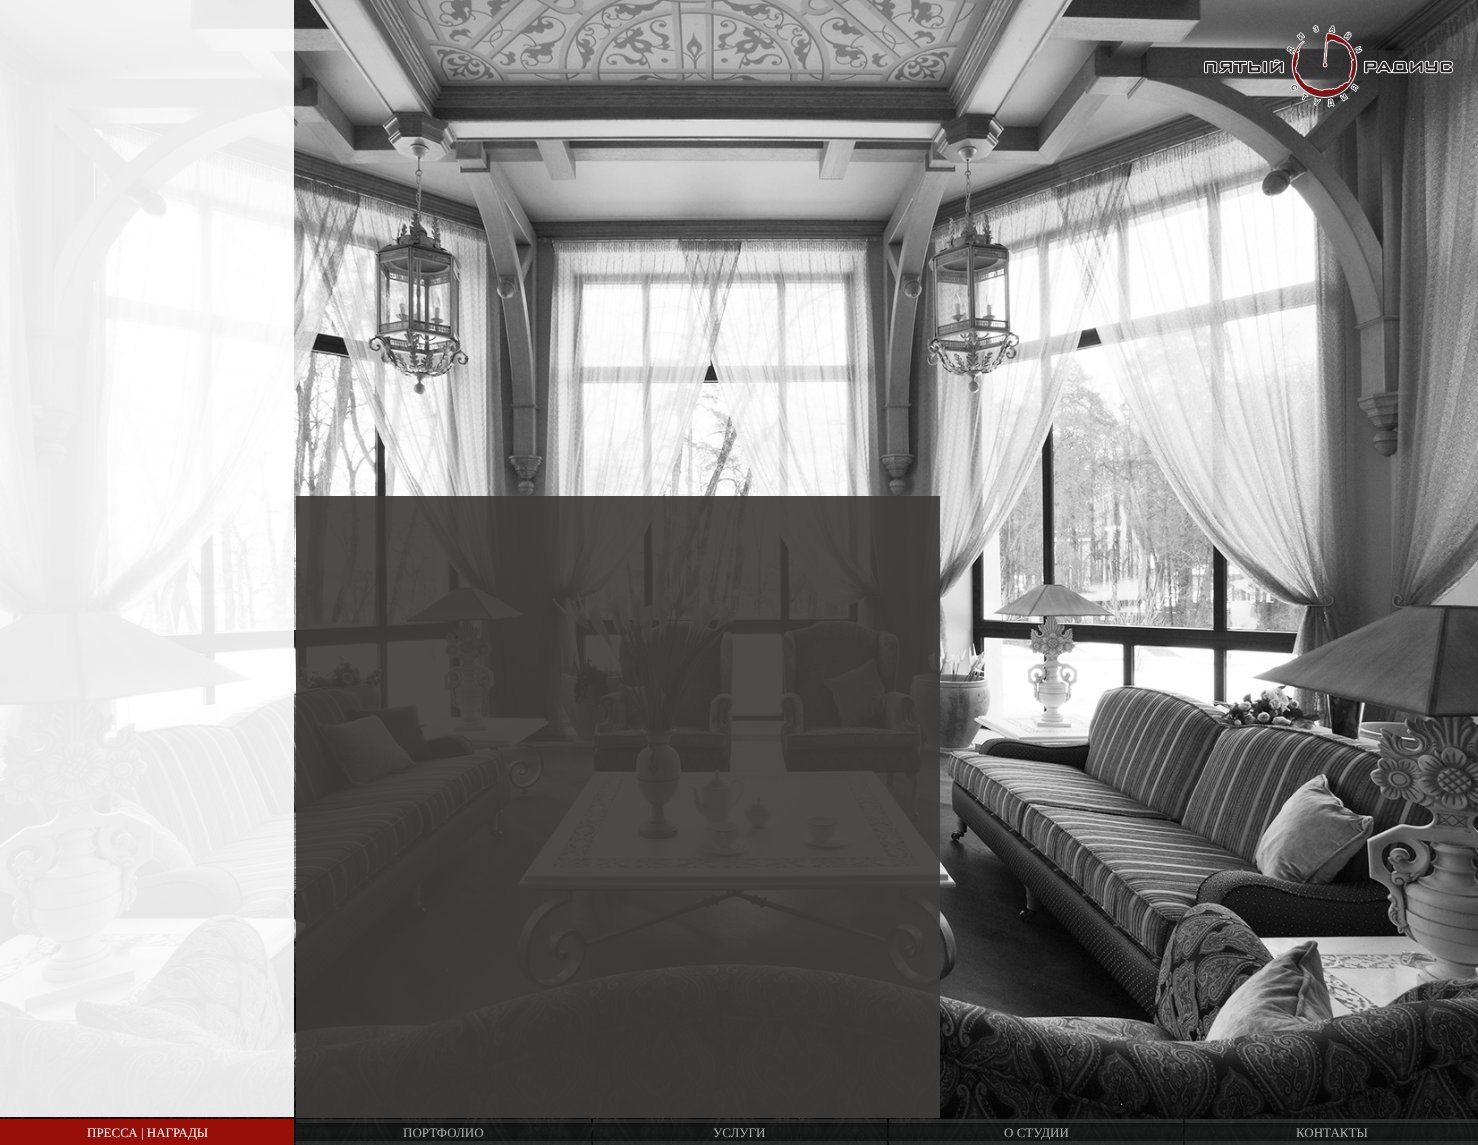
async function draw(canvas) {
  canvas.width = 1478
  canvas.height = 1145
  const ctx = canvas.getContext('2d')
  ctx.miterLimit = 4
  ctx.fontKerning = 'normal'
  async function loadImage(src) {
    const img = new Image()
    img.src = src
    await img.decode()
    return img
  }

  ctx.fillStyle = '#fff'
  ctx.fillRect(0, 0, 1478, 1145)
  ctx.drawImage(await loadImage('image0.png'), 0, 0, 1478, 1145)
  ctx.drawImage(await loadImage('image1.png'), 1204, 25, 249, 83)
  ctx.fillStyle = '#ffffffe6'
  ctx.fillRect(0, 0, 294, 1117)
  ctx.fillStyle = '#3f3d3beb'
  ctx.fillRect(296, 496, 644, 622)
  ctx.fillStyle = '#970e07'
  ctx.fillRect(0, 1119, 294, 26)
  ctx.font = '13px Liberation Serif'
  ctx.fillStyle = '#fff'
  ctx.fillText('ПРЕССА | НАГРАДЫ', 87, 1137)
  ctx.drawImage(await loadImage('image2.png'), 296, 1119, 295, 26)
  ctx.fillStyle = '#aaafad'
  ctx.fillText('ПОРТФОЛИО', 403, 1137)
  ctx.drawImage(await loadImage('image3.png'), 593, 1119, 294, 26)
  ctx.fillText('УСЛУГИ', 713, 1137)
  ctx.drawImage(await loadImage('image4.png'), 889, 1119, 294, 26)
  ctx.fillText('О СТУДИИ', 1004, 1137)
  ctx.drawImage(await loadImage('image5.png'), 1185, 1119, 293, 26)
  ctx.fillText('КОНТАКТЫ', 1296, 1137)
}

draw(document.querySelector('canvas'))
